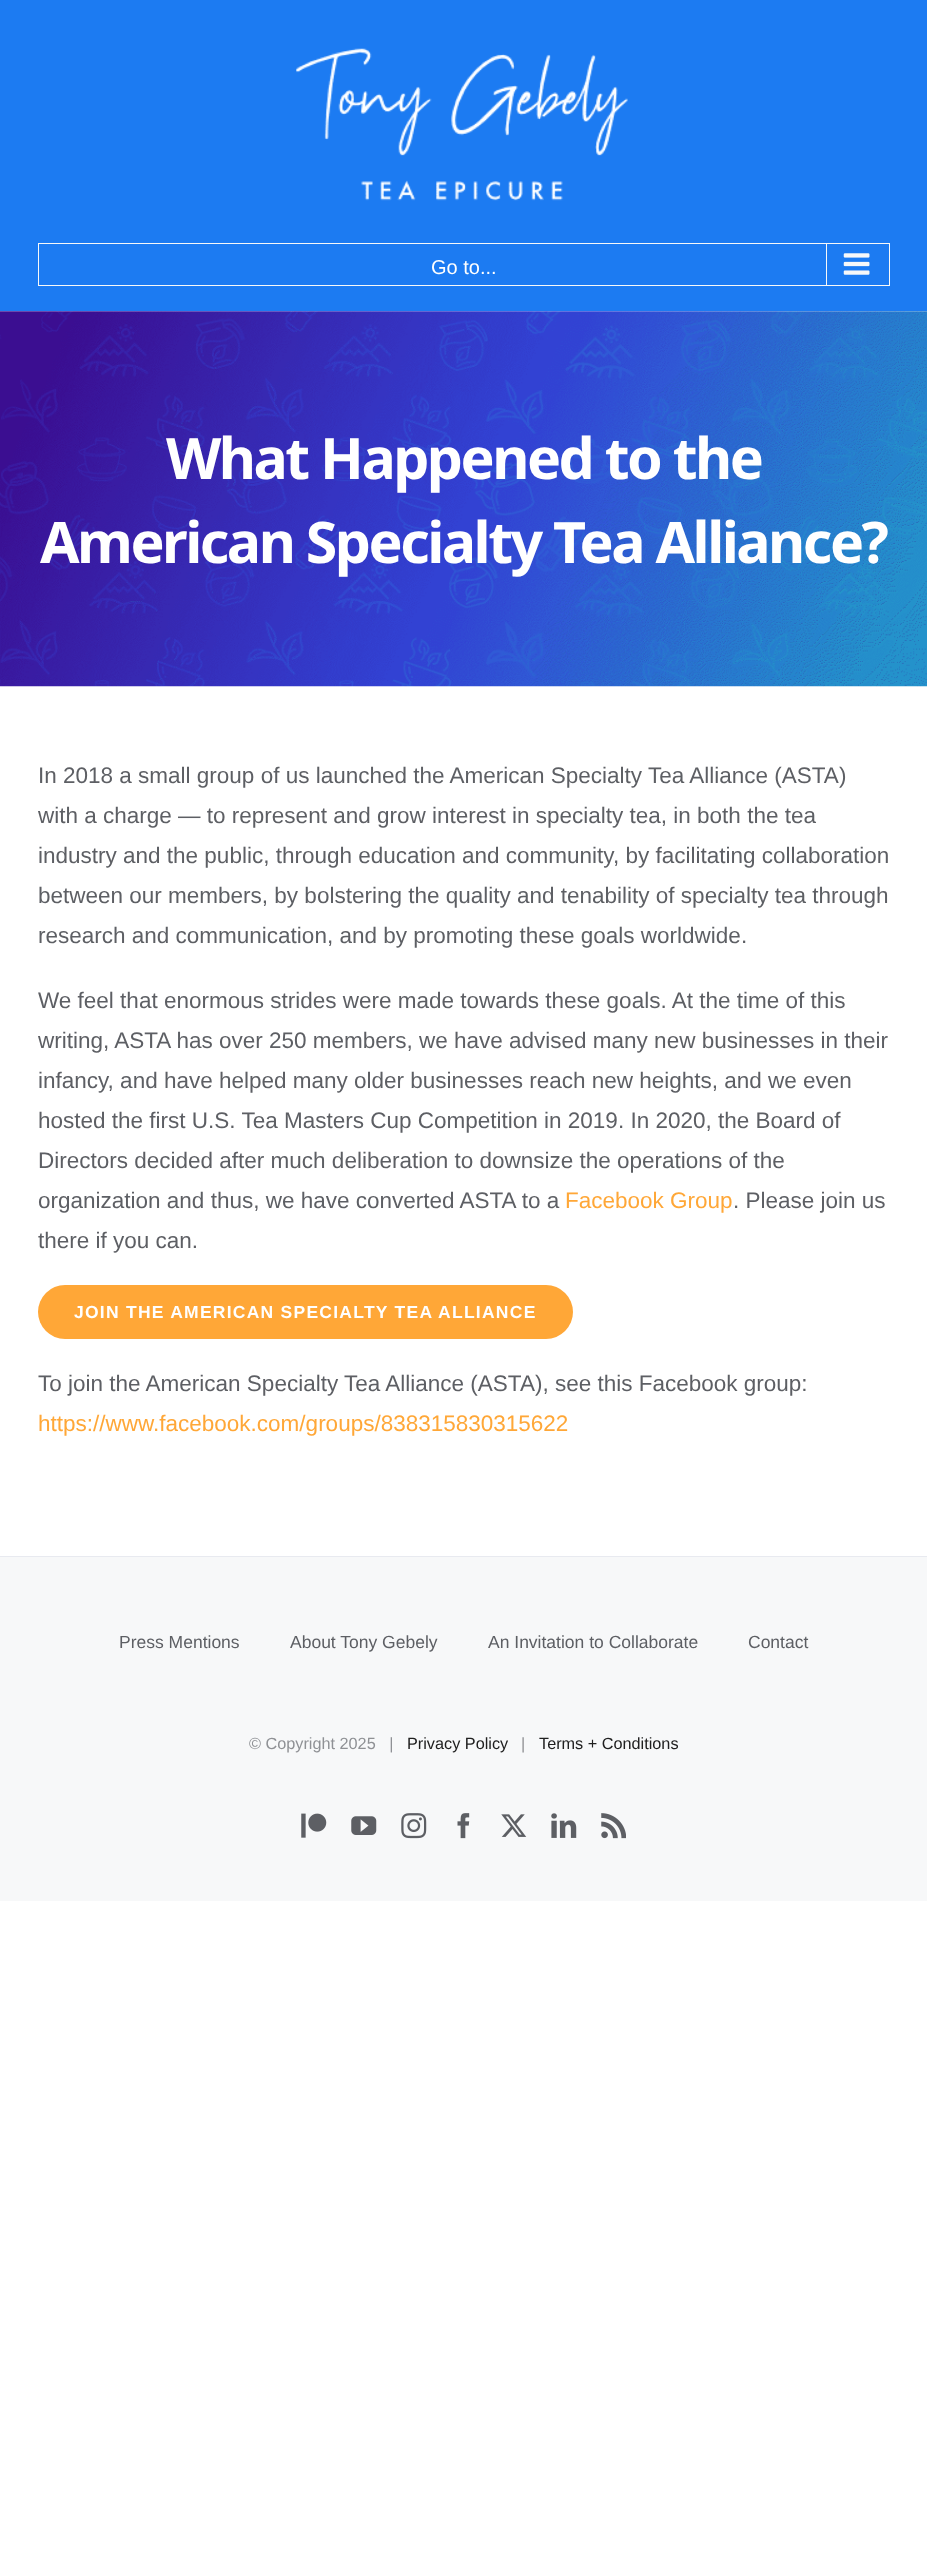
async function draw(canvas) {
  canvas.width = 927
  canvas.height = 2569
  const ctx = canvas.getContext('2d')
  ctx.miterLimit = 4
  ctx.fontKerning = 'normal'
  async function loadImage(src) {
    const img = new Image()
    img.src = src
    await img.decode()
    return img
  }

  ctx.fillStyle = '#fff'
  ctx.fillRect(0, 0, 927, 2569)
  ctx.fillStyle = '#1c7bf2'
  ctx.fillRect(0, 0, 927, 311)
  ctx.drawImage(await loadImage('image0.png'), 296, 48, 332, 153)
  ctx.strokeStyle = '#f7f8f9'
  ctx.strokeRect(38.5, 243.5, 851, 42)
  ctx.font = '20px Liberation Sans'
  ctx.fillStyle = '#fff'
  ctx.fillText('Go to...', 431, 274)
  ctx.fillStyle = '#f7f8f9'
  ctx.fillRect(826, 244, 1, 41)
  ctx.drawImage(await loadImage('image1.png'), 843, 253, 27, 22)
  ctx.drawImage(await loadImage('image2.png'), 0, 311, 927, 376)
  ctx.letterSpacing = '-2.5px'
  ctx.font = 'bold 57.25px Noto Sans'
  ctx.fillStyle = '#fff'
  ctx.fillText('What Happened to the', 166, 479)
  ctx.fillText('American Specialty Tea Alliance?', 40, 563)
  ctx.letterSpacing = '0px'
  ctx.font = '22.5px Liberation Sans'
  ctx.fillStyle = '#5d5f64'
  ctx.fillText('In 2018 a small group of us launched the American Specialty Tea Alliance (ASTA)', 38, 783)
  ctx.fillText('with a charge — to represent and grow interest in specialty tea, in both the tea', 38, 823)
  ctx.fillText('industry and the public, through education and community, by facilitating collaboration', 38, 863)
  ctx.fillText('between our members, by bolstering the quality and tenability of specialty tea through', 38, 903)
  ctx.fillText('research and communication, and by promoting these goals worldwide.', 38, 943)
  ctx.fillText('We feel that enormous strides were made towards these goals. At the time of this', 38, 1008)
  ctx.fillText('writing, ASTA has over 250 members, we have advised many new businesses in their', 38, 1048)
  ctx.fillText('infancy, and have helped many older businesses reach new heights, and we even', 38, 1088)
  ctx.fillText('hosted the first U.S. Tea Masters Cup Competition in 2019. In 2020, the Board of', 38, 1128)
  ctx.fillText('Directors decided after much deliberation to downsize the operations of the', 38, 1168)
  ctx.fillText('organization and thus, we have converted ASTA to a', 38, 1208)
  ctx.fillStyle = '#ffa737'
  ctx.fillText('Facebook Group', 565, 1208)
  ctx.fillStyle = '#5d5f64'
  ctx.fillText('. Please join us', 733, 1208)
  ctx.fillText('there if you can.', 38, 1248)
  ctx.fillStyle = '#ffa737'
  ctx.beginPath()
  ctx.roundRect(38, 1285, 535, 54, 27)
  ctx.fill()
  ctx.letterSpacing = '1.25px'
  ctx.font = 'bold 17.5px Liberation Sans'
  ctx.fillStyle = '#fff'
  ctx.fillText('JOIN THE AMERICAN SPECIALTY TEA ALLIANCE', 74, 1318)
  ctx.letterSpacing = '0px'
  ctx.font = '22.5px Liberation Sans'
  ctx.fillStyle = '#5d5f64'
  ctx.fillText('To join the American Specialty Tea Alliance (ASTA), see this Facebook group:', 38, 1391)
  ctx.fillStyle = '#ffa737'
  ctx.fillText('https://www.facebook.com/groups/838315830315622', 38, 1431)
  ctx.fillStyle = '#f7f8f9'
  ctx.fillRect(0, 1557, 927, 344)
  ctx.fillStyle = '#e8eaf0'
  ctx.fillRect(0, 1556, 927, 1)
  ctx.font = '17.5px Liberation Sans'
  ctx.fillStyle = '#5d5f64'
  ctx.fillText('Press Mentions', 119, 1648)
  ctx.fillText('About Tony Gebely', 290, 1648)
  ctx.fillText('An Invitation to Collaborate', 488, 1648)
  ctx.fillText('Contact', 748, 1648)
  ctx.font = '16.25px Liberation Sans'
  ctx.fillStyle = '#8f9195'
  ctx.fillText('© Copyright 2025   |', 249, 1749)
  ctx.fillStyle = '#202020'
  ctx.fillText('Privacy Policy', 407, 1749)
  ctx.fillStyle = '#8f9195'
  ctx.fillText('|', 521, 1749)
  ctx.fillStyle = '#202020'
  ctx.fillText('Terms + Conditions', 539, 1749)
  ctx.drawImage(await loadImage('image3.png'), 301, 1813, 26, 25)
  ctx.drawImage(await loadImage('image4.png'), 351, 1816, 26, 19)
  ctx.drawImage(await loadImage('image5.png'), 401, 1813, 26, 26)
  ctx.drawImage(await loadImage('image6.png'), 457, 1813, 13, 26)
  ctx.drawImage(await loadImage('image7.png'), 501, 1814, 26, 23)
  ctx.drawImage(await loadImage('image8.png'), 551, 1813, 26, 25)
  ctx.drawImage(await loadImage('image9.png'), 601, 1813, 25, 26)
}

draw(document.querySelector('canvas'))
